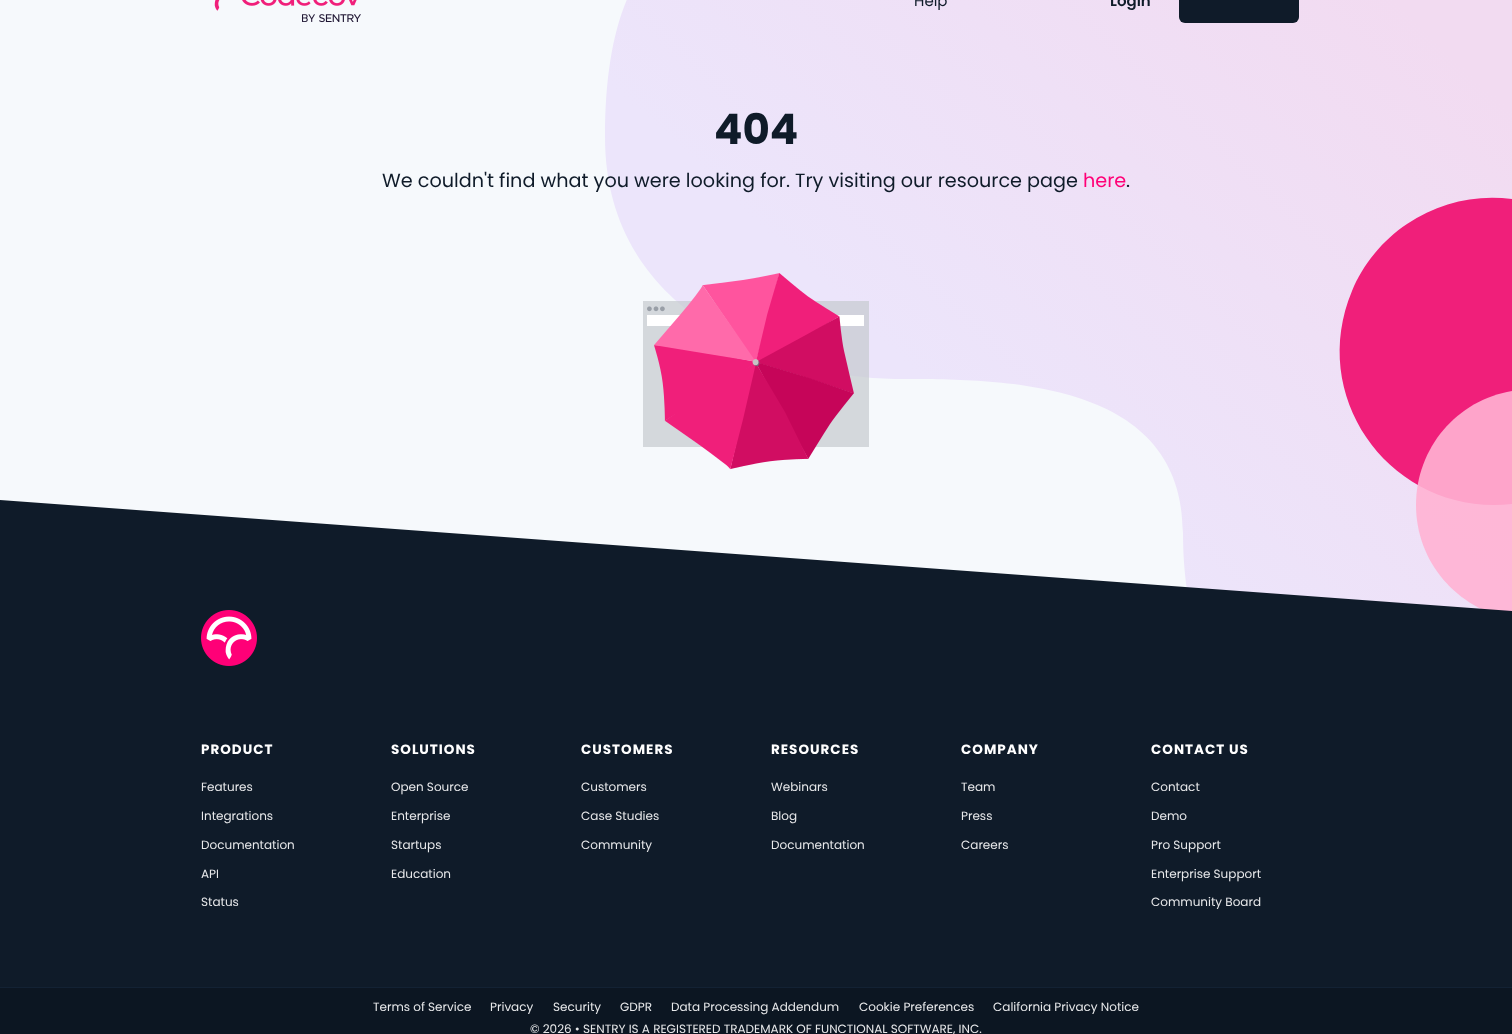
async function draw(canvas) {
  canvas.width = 1512
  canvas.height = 1034
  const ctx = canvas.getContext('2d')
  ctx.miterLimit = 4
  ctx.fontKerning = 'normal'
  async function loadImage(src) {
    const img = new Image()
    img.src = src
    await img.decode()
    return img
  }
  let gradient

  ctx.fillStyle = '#f6f9fc'
  ctx.fillRect(0, 0, 1512, 1034)
  gradient = ctx.createLinearGradient(1013, 464, 1424, 28)
  gradient.addColorStop(0, '#ece5fb')
  gradient.addColorStop(1, '#f2dbf1')
  ctx.fillStyle = gradient
  ctx.beginPath()
  ctx.moveTo(1512, 816)
  ctx.lineTo(1512, -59)
  ctx.lineTo(670, -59)
  ctx.bezierCurveTo(626, -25, 605, 40, 605, 137)
  ctx.bezierCurveTo(605, 322, 792, 379, 900, 379)
  ctx.bezierCurveTo(1008, 379, 1183, 381, 1183, 533)
  ctx.bezierCurveTo(1183, 684, 1262, 830, 1512, 830)
  ctx.closePath()
  ctx.fill()
  ctx.fillStyle = '#f01f7a'
  ctx.beginPath()
  ctx.moveTo(1512, 504)
  ctx.bezierCurveTo(1395, 517, 1306, 401, 1352, 291)
  ctx.bezierCurveTo(1363, 264, 1383, 240, 1407, 224)
  ctx.bezierCurveTo(1438, 203, 1475, 194, 1512, 199)
  ctx.closePath()
  ctx.fill()
  ctx.fillStyle = '#ffb2d3e6'
  ctx.beginPath()
  ctx.moveTo(1512, 619)
  ctx.bezierCurveTo(1457, 609, 1416, 562, 1416, 505)
  ctx.bezierCurveTo(1416, 448, 1457, 400, 1512, 391)
  ctx.fill()
  ctx.drawImage(await loadImage('image0.png'), 214, 0, 147, 23)
  ctx.font = '15px Poppins'
  ctx.fillStyle = '#0f1b29'
  ctx.fillText('Help', 914, 6)
  ctx.font = '600 15px Poppins'
  ctx.fillText('Login', 1110, 6)
  ctx.beginPath()
  ctx.roundRect(1179, -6, 120, 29, 6)
  ctx.fill()
  ctx.font = 'bold 42px Poppins'
  ctx.fillText('404', 714, 144)
  ctx.font = '19.2px Poppins'
  ctx.fillText('We couldn\'t find what you were looking for. Try visiting our resource page', 382, 187)
  ctx.fillStyle = '#f07'
  ctx.fillText('here', 1083, 187)
  ctx.fillStyle = '#0f1b29'
  ctx.fillText('.', 1126, 187)
  ctx.drawImage(await loadImage('image1.png'), 643, 273, 226, 197)
  ctx.beginPath()
  ctx.moveTo(0, 500)
  ctx.lineTo(0, 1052)
  ctx.lineTo(1512, 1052)
  ctx.lineTo(1512, 611)
  ctx.closePath()
  ctx.fill()
  ctx.drawImage(await loadImage('image2.png'), 201, 610, 56, 56)
  ctx.letterSpacing = '1px'
  ctx.font = 'bold 13.5px Poppins'
  ctx.fillStyle = '#fff'
  ctx.fillText('PRODUCT', 201, 754)
  ctx.letterSpacing = '0px'
  ctx.font = '12px Poppins'
  ctx.fillStyle = '#e7e8ea'
  ctx.fillText('Features', 201, 791)
  ctx.fillText('Integrations', 201, 820)
  ctx.fillText('Documentation', 201, 849)
  ctx.fillText('API', 201, 878)
  ctx.fillText('Status', 201, 906)
  ctx.letterSpacing = '1px'
  ctx.font = 'bold 13.5px Poppins'
  ctx.fillStyle = '#fff'
  ctx.fillText('SOLUTIONS', 391, 754)
  ctx.letterSpacing = '0px'
  ctx.font = '12px Poppins'
  ctx.fillStyle = '#e7e8ea'
  ctx.fillText('Open Source', 391, 791)
  ctx.fillText('Enterprise', 391, 820)
  ctx.fillText('Startups', 391, 849)
  ctx.fillText('Education', 391, 878)
  ctx.letterSpacing = '1px'
  ctx.font = 'bold 13.5px Poppins'
  ctx.fillStyle = '#fff'
  ctx.fillText('CUSTOMERS', 581, 754)
  ctx.letterSpacing = '0px'
  ctx.font = '12px Poppins'
  ctx.fillStyle = '#e7e8ea'
  ctx.fillText('Customers', 581, 791)
  ctx.fillText('Case Studies', 581, 820)
  ctx.fillText('Community', 581, 849)
  ctx.letterSpacing = '1px'
  ctx.font = 'bold 13.5px Poppins'
  ctx.fillStyle = '#fff'
  ctx.fillText('RESOURCES', 771, 754)
  ctx.letterSpacing = '0px'
  ctx.font = '12px Poppins'
  ctx.fillStyle = '#e7e8ea'
  ctx.fillText('Webinars', 771, 791)
  ctx.fillText('Blog', 771, 820)
  ctx.fillText('Documentation', 771, 849)
  ctx.letterSpacing = '1px'
  ctx.font = 'bold 13.5px Poppins'
  ctx.fillStyle = '#fff'
  ctx.fillText('COMPANY', 961, 754)
  ctx.letterSpacing = '0px'
  ctx.font = '12px Poppins'
  ctx.fillStyle = '#e7e8ea'
  ctx.fillText('Team', 961, 791)
  ctx.fillText('Press', 961, 820)
  ctx.fillText('Careers', 961, 849)
  ctx.letterSpacing = '1px'
  ctx.font = 'bold 13.5px Poppins'
  ctx.fillStyle = '#fff'
  ctx.fillText('CONTACT US', 1151, 754)
  ctx.letterSpacing = '0px'
  ctx.font = '12px Poppins'
  ctx.fillStyle = '#e7e8ea'
  ctx.fillText('Contact', 1151, 791)
  ctx.fillText('Demo', 1151, 820)
  ctx.fillText('Pro Support', 1151, 849)
  ctx.fillText('Enterprise Support', 1151, 878)
  ctx.fillText('Community Board', 1151, 906)
  ctx.fillStyle = '#0c1622'
  ctx.fillRect(0, 988, 1512, 46)
  ctx.fillStyle = '#132234'
  ctx.fillRect(0, 987, 1512, 1)
  ctx.fillStyle = '#e7e8ea'
  ctx.fillText('Terms of Service', 373, 1011)
  ctx.fillText('Privacy', 490, 1011)
  ctx.fillText('Security', 553, 1011)
  ctx.fillText('GDPR', 620, 1011)
  ctx.fillText('Data Processing Addendum', 671, 1011)
  ctx.fillText('Cookie Preferences', 859, 1011)
  ctx.fillText('California Privacy Notice', 993, 1011)
  ctx.fillText('© 2026 • SENTRY IS A REGISTERED TRADEMARK OF FUNCTIONAL SOFTWARE, INC.', 530, 1033)
}

draw(document.querySelector('canvas'))
